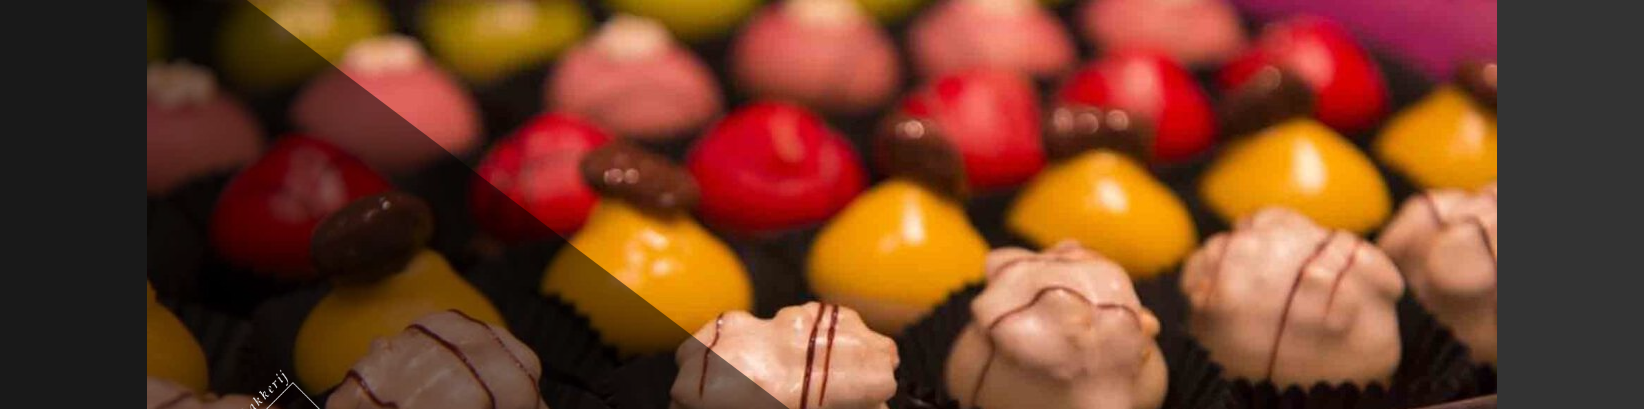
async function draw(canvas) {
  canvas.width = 1644
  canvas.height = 409
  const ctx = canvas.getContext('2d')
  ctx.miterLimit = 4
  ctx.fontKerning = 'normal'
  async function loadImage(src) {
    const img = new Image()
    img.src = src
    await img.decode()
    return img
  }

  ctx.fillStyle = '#333'
  ctx.fillRect(0, 0, 1644, 409)
  ctx.drawImage(await loadImage('image0.png'), 147, 0, 1350, 409)
  ctx.fillStyle = '#00000080'
  ctx.beginPath()
  ctx.moveTo(-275, -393)
  ctx.lineTo(1038, 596)
  ctx.lineTo(437, 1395)
  ctx.lineTo(-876, 406)
  ctx.closePath()
  ctx.fill()
  ctx.drawImage(await loadImage('image1.png'), 241, 369, 80, 40)
}

draw(document.querySelector('canvas'))
